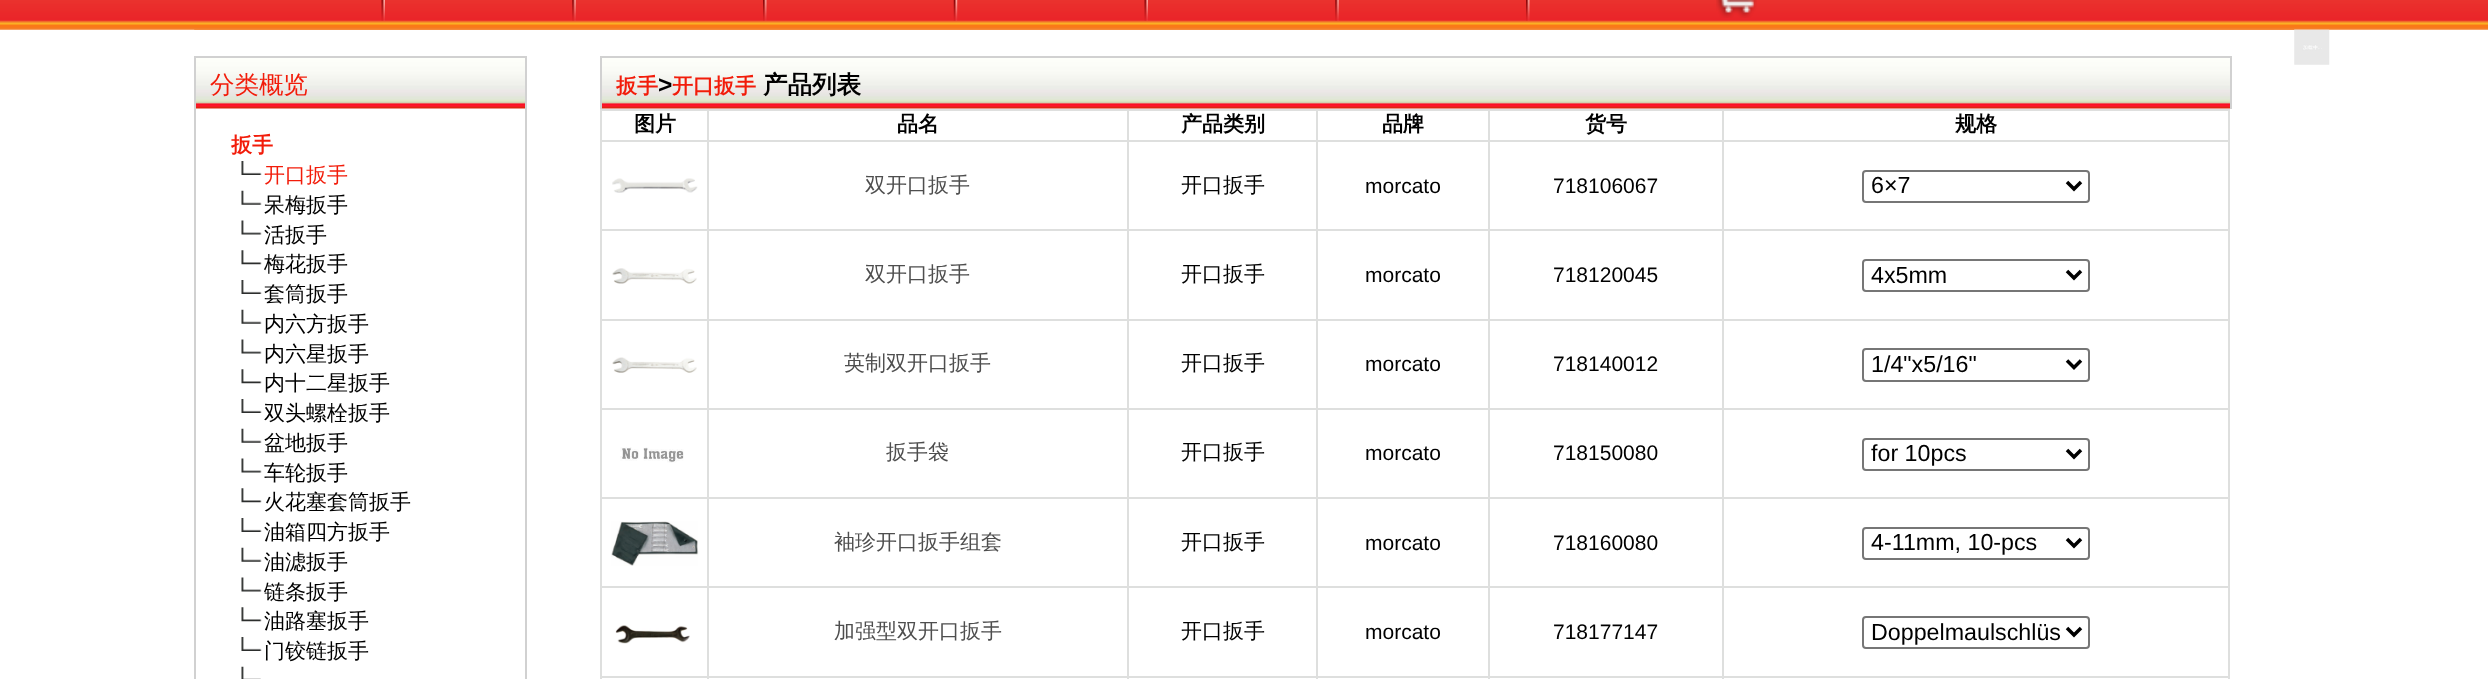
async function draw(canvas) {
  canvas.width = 2488
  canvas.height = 679
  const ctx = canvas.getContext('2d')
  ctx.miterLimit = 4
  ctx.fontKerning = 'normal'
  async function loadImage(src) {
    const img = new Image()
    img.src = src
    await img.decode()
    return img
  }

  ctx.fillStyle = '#fff'
  ctx.fillRect(0, 0, 2488, 679)
  ctx.drawImage(await loadImage('image1.png'), 0, 0, 2488, 30)
  ctx.drawImage(await loadImage('image2.png'), 194, 29, 2101, 1)
  ctx.drawImage(await loadImage('image0.png'), 2294, 29, 36, 36)
  ctx.drawImage(await loadImage('image3.png'), 381, 0, 4, 21)
  ctx.drawImage(await loadImage('image4.png'), 572, 0, 4, 21)
  ctx.drawImage(await loadImage('image5.png'), 763, 0, 4, 21)
  ctx.drawImage(await loadImage('image6.png'), 953, 0, 5, 21)
  ctx.drawImage(await loadImage('image3.png'), 1144, 0, 4, 21)
  ctx.drawImage(await loadImage('image4.png'), 1335, 0, 4, 21)
  ctx.drawImage(await loadImage('image5.png'), 1526, 0, 4, 21)
  ctx.drawImage(await loadImage('image7.png'), 1716, 0, 41, 18)
  ctx.drawImage(await loadImage('image8.png'), 196, 58, 329, 51)
  ctx.fillStyle = '#d1d1d1'
  ctx.fillRect(194, 56, 333, 2)
  ctx.fillRect(525, 56, 2, 623)
  ctx.fillRect(194, 56, 2, 623)
  ctx.font = '500 24.5px WenQuanYi Zen Hei'
  ctx.fillStyle = '#f21c0a'
  ctx.fillText('分类概览', 210, 93)
  ctx.font = 'bold 21px WenQuanYi Zen Hei'
  ctx.fillText('扳手', 231, 152)
  ctx.drawImage(await loadImage('image9.png'), 241, 161, 21, 14)
  ctx.font = '500 21px WenQuanYi Zen Hei'
  ctx.fillText('开口扳手', 264, 182)
  ctx.drawImage(await loadImage('image10.png'), 241, 190, 21, 15)
  ctx.fillStyle = '#000'
  ctx.fillText('呆梅扳手', 264, 212)
  ctx.drawImage(await loadImage('image11.png'), 241, 220, 21, 15)
  ctx.fillText('活扳手', 264, 242)
  ctx.drawImage(await loadImage('image12.png'), 241, 250, 21, 15)
  ctx.fillText('梅花扳手', 264, 271)
  ctx.drawImage(await loadImage('image9.png'), 241, 280, 21, 14)
  ctx.fillText('套筒扳手', 264, 301)
  ctx.drawImage(await loadImage('image10.png'), 241, 309, 21, 15)
  ctx.fillText('内六方扳手', 264, 331)
  ctx.drawImage(await loadImage('image11.png'), 241, 339, 21, 15)
  ctx.fillText('内六星扳手', 264, 361)
  ctx.drawImage(await loadImage('image12.png'), 241, 369, 21, 15)
  ctx.fillText('内十二星扳手', 264, 390)
  ctx.drawImage(await loadImage('image9.png'), 241, 399, 21, 14)
  ctx.fillText('双头螺栓扳手', 264, 420)
  ctx.drawImage(await loadImage('image10.png'), 241, 428, 21, 15)
  ctx.fillText('盆地扳手', 264, 450)
  ctx.drawImage(await loadImage('image11.png'), 241, 458, 21, 15)
  ctx.fillText('车轮扳手', 264, 480)
  ctx.drawImage(await loadImage('image12.png'), 241, 488, 21, 15)
  ctx.fillText('火花塞套筒扳手', 264, 509)
  ctx.drawImage(await loadImage('image9.png'), 241, 518, 21, 14)
  ctx.fillText('油箱四方扳手', 264, 539)
  ctx.drawImage(await loadImage('image10.png'), 241, 547, 21, 15)
  ctx.fillText('油滤扳手', 264, 569)
  ctx.drawImage(await loadImage('image11.png'), 241, 577, 21, 15)
  ctx.fillText('链条扳手', 264, 599)
  ctx.drawImage(await loadImage('image12.png'), 241, 607, 21, 15)
  ctx.fillText('油路塞扳手', 264, 628)
  ctx.drawImage(await loadImage('image9.png'), 241, 637, 21, 14)
  ctx.fillText('门铰链扳手', 264, 658)
  ctx.drawImage(await loadImage('image13.png'), 241, 666, 20, 13)
  ctx.drawImage(await loadImage('image14.png'), 602, 58, 1628, 51)
  ctx.fillStyle = '#d1d1d1'
  ctx.fillRect(600, 56, 1631, 2)
  ctx.fillRect(2230, 56, 2, 53)
  ctx.fillRect(600, 56, 2, 53)
  ctx.font = 'bold 21px WenQuanYi Zen Hei'
  ctx.fillStyle = '#f21c0a'
  ctx.fillText('扳手', 616, 93)
  ctx.font = 'bold 24.5px Liberation Sans'
  ctx.fillStyle = '#000'
  ctx.fillText('>', 658, 93)
  ctx.font = 'bold 21px WenQuanYi Zen Hei'
  ctx.fillStyle = '#f21c0a'
  ctx.fillText('开口扳手', 672, 93)
  ctx.font = 'bold 24.5px WenQuanYi Zen Hei'
  ctx.fillStyle = '#000'
  ctx.fillText('产品列表', 763, 93)
  ctx.fillStyle = '#dedfde'
  ctx.fillRect(1722, 109, 508, 2)
  ctx.fillRect(1722, 140, 508, 2)
  ctx.fillRect(1722, 229, 508, 2)
  ctx.fillRect(1722, 319, 508, 2)
  ctx.fillRect(1722, 408, 508, 2)
  ctx.fillRect(1722, 497, 508, 2)
  ctx.fillRect(1722, 586, 508, 2)
  ctx.fillRect(1722, 676, 508, 2)
  ctx.fillRect(1722, 676, 2, 3)
  ctx.fillRect(1488, 676, 236, 2)
  ctx.fillRect(1722, 586, 2, 91)
  ctx.fillRect(1488, 586, 236, 2)
  ctx.fillRect(1722, 497, 2, 91)
  ctx.fillRect(1488, 497, 236, 2)
  ctx.fillRect(1722, 408, 2, 91)
  ctx.fillRect(1488, 408, 236, 2)
  ctx.fillRect(1722, 319, 2, 91)
  ctx.fillRect(1488, 319, 236, 2)
  ctx.fillRect(1722, 229, 2, 91)
  ctx.fillRect(1488, 229, 236, 2)
  ctx.fillRect(1722, 140, 2, 91)
  ctx.fillRect(1488, 140, 236, 2)
  ctx.fillRect(1722, 109, 2, 33)
  ctx.fillRect(1488, 109, 236, 2)
  ctx.fillRect(1488, 676, 2, 3)
  ctx.fillRect(1316, 676, 173, 2)
  ctx.fillRect(1488, 586, 2, 91)
  ctx.fillRect(1316, 586, 173, 2)
  ctx.fillRect(1488, 497, 2, 91)
  ctx.fillRect(1316, 497, 173, 2)
  ctx.fillRect(1488, 408, 2, 91)
  ctx.fillRect(1316, 408, 173, 2)
  ctx.fillRect(1488, 319, 2, 91)
  ctx.fillRect(1316, 319, 173, 2)
  ctx.fillRect(1488, 229, 2, 91)
  ctx.fillRect(1316, 229, 173, 2)
  ctx.fillRect(1488, 140, 2, 91)
  ctx.fillRect(1316, 140, 173, 2)
  ctx.fillRect(1488, 109, 2, 33)
  ctx.fillRect(1316, 109, 173, 2)
  ctx.fillRect(1316, 676, 2, 3)
  ctx.fillRect(1127, 676, 191, 2)
  ctx.fillRect(1316, 586, 2, 91)
  ctx.fillRect(1127, 586, 191, 2)
  ctx.fillRect(1316, 497, 2, 91)
  ctx.fillRect(1127, 497, 191, 2)
  ctx.fillRect(1316, 408, 2, 91)
  ctx.fillRect(1127, 408, 191, 2)
  ctx.fillRect(1316, 319, 2, 91)
  ctx.fillRect(1127, 319, 191, 2)
  ctx.fillRect(1316, 229, 2, 91)
  ctx.fillRect(1127, 229, 191, 2)
  ctx.fillRect(1316, 140, 2, 91)
  ctx.fillRect(1127, 140, 191, 2)
  ctx.fillRect(1316, 109, 2, 33)
  ctx.fillRect(1127, 109, 191, 2)
  ctx.fillRect(1127, 676, 2, 3)
  ctx.fillRect(707, 676, 422, 2)
  ctx.fillRect(1127, 586, 2, 91)
  ctx.fillRect(707, 586, 422, 2)
  ctx.fillRect(1127, 497, 2, 91)
  ctx.fillRect(707, 497, 422, 2)
  ctx.fillRect(1127, 408, 2, 91)
  ctx.fillRect(707, 408, 422, 2)
  ctx.fillRect(1127, 319, 2, 91)
  ctx.fillRect(707, 319, 422, 2)
  ctx.fillRect(1127, 229, 2, 91)
  ctx.fillRect(707, 229, 422, 2)
  ctx.fillRect(1127, 140, 2, 91)
  ctx.fillRect(707, 140, 422, 2)
  ctx.fillRect(1127, 109, 2, 33)
  ctx.fillRect(707, 109, 422, 2)
  ctx.fillRect(707, 676, 2, 3)
  ctx.fillRect(600, 676, 109, 2)
  ctx.fillRect(707, 586, 2, 91)
  ctx.fillRect(600, 586, 109, 2)
  ctx.fillRect(707, 497, 2, 91)
  ctx.fillRect(600, 497, 109, 2)
  ctx.fillRect(707, 408, 2, 91)
  ctx.fillRect(600, 408, 109, 2)
  ctx.fillRect(707, 319, 2, 91)
  ctx.fillRect(600, 319, 109, 2)
  ctx.fillRect(707, 229, 2, 91)
  ctx.fillRect(600, 229, 109, 2)
  ctx.fillRect(707, 140, 2, 91)
  ctx.fillRect(600, 140, 109, 2)
  ctx.fillRect(707, 109, 2, 33)
  ctx.fillRect(600, 109, 109, 2)
  ctx.fillRect(600, 676, 2, 3)
  ctx.fillRect(600, 586, 2, 91)
  ctx.fillRect(600, 497, 2, 91)
  ctx.fillRect(600, 408, 2, 91)
  ctx.fillRect(600, 319, 2, 91)
  ctx.fillRect(600, 229, 2, 91)
  ctx.fillRect(600, 140, 2, 91)
  ctx.fillRect(600, 109, 2, 33)
  ctx.font = 'bold 21px WenQuanYi Zen Hei'
  ctx.fillStyle = '#000'
  ctx.fillText('图片', 634, 131)
  ctx.fillText('品名', 897, 131)
  ctx.fillText('产品类别', 1181, 131)
  ctx.fillText('品牌', 1382, 131)
  ctx.fillText('货号', 1585, 131)
  ctx.fillStyle = '#dedfde'
  ctx.fillRect(2228, 676, 2, 3)
  ctx.fillRect(2228, 586, 2, 91)
  ctx.fillRect(2228, 497, 2, 91)
  ctx.fillRect(2228, 408, 2, 91)
  ctx.fillRect(2228, 319, 2, 91)
  ctx.fillRect(2228, 229, 2, 91)
  ctx.fillRect(2228, 140, 2, 91)
  ctx.fillRect(2228, 109, 2, 33)
  ctx.fillStyle = '#000'
  ctx.fillText('规格', 1955, 131)
  ctx.drawImage(await loadImage('image15.png'), 612, 178, 86, 15)
  ctx.font = '500 21px WenQuanYi Zen Hei'
  ctx.fillStyle = '#4e4e4e'
  ctx.fillText('双开口扳手', 865, 192)
  ctx.fillStyle = '#000'
  ctx.fillText('开口扳手', 1181, 192)
  ctx.font = '21px Liberation Sans'
  ctx.fillText('morcato', 1365, 193)
  ctx.fillText('718106067', 1553, 193)
  ctx.beginPath()
  ctx.roundRect(1863, 171, 226, 31, 3)
  ctx.strokeStyle = '#767676'
  ctx.lineWidth = 2
  ctx.stroke()
  ctx.beginPath()
  ctx.moveTo(2067, 182)
  ctx.lineTo(2074, 189)
  ctx.lineTo(2081, 182)
  ctx.strokeStyle = '#000'
  ctx.lineWidth = 3.5
  ctx.stroke()
  ctx.font = '23.25px Liberation Sans'
  ctx.fillText('6×7', 1871, 193)
  ctx.drawImage(await loadImage('image16.png'), 612, 268, 85, 16)
  ctx.font = '500 21px WenQuanYi Zen Hei'
  ctx.fillStyle = '#4e4e4e'
  ctx.fillText('双开口扳手', 865, 281)
  ctx.fillStyle = '#000'
  ctx.fillText('开口扳手', 1181, 281)
  ctx.font = '21px Liberation Sans'
  ctx.fillText('morcato', 1365, 282)
  ctx.fillText('718120045', 1553, 282)
  ctx.beginPath()
  ctx.roundRect(1863, 260, 226, 31, 3)
  ctx.strokeStyle = '#767676'
  ctx.lineWidth = 2
  ctx.stroke()
  ctx.beginPath()
  ctx.moveTo(2067, 271)
  ctx.lineTo(2074, 278)
  ctx.lineTo(2081, 271)
  ctx.strokeStyle = '#000'
  ctx.lineWidth = 3.5
  ctx.stroke()
  ctx.font = '23.25px Liberation Sans'
  ctx.fillText('4x5mm', 1871, 283)
  ctx.drawImage(await loadImage('image17.png'), 612, 357, 85, 16)
  ctx.font = '500 21px WenQuanYi Zen Hei'
  ctx.fillStyle = '#4e4e4e'
  ctx.fillText('英制双开口扳手', 844, 370)
  ctx.fillStyle = '#000'
  ctx.fillText('开口扳手', 1181, 370)
  ctx.font = '21px Liberation Sans'
  ctx.fillText('morcato', 1365, 371)
  ctx.fillText('718140012', 1553, 371)
  ctx.beginPath()
  ctx.roundRect(1863, 349, 226, 32, 3)
  ctx.strokeStyle = '#767676'
  ctx.lineWidth = 2
  ctx.stroke()
  ctx.beginPath()
  ctx.moveTo(2067, 360.5)
  ctx.lineTo(2074, 367.5)
  ctx.lineTo(2081, 360.5)
  ctx.strokeStyle = '#000'
  ctx.lineWidth = 3.5
  ctx.stroke()
  ctx.font = '23.25px Liberation Sans'
  ctx.fillText('1/4"x5/16"', 1871, 372)
  ctx.drawImage(await loadImage('image18.png'), 620, 447, 64, 16)
  ctx.font = '500 21px WenQuanYi Zen Hei'
  ctx.fillStyle = '#4e4e4e'
  ctx.fillText('扳手袋', 886, 459)
  ctx.fillStyle = '#000'
  ctx.fillText('开口扳手', 1181, 459)
  ctx.font = '21px Liberation Sans'
  ctx.fillText('morcato', 1365, 460)
  ctx.fillText('718150080', 1553, 460)
  ctx.beginPath()
  ctx.roundRect(1863, 439, 226, 31, 3)
  ctx.strokeStyle = '#767676'
  ctx.lineWidth = 2
  ctx.stroke()
  ctx.beginPath()
  ctx.moveTo(2067, 450)
  ctx.lineTo(2074, 457)
  ctx.lineTo(2081, 450)
  ctx.strokeStyle = '#000'
  ctx.lineWidth = 3.5
  ctx.stroke()
  ctx.font = '23.25px Liberation Sans'
  ctx.fillText('for 10pcs', 1871, 461)
  ctx.drawImage(await loadImage('image19.png'), 611, 521, 88, 45)
  ctx.font = '500 21px WenQuanYi Zen Hei'
  ctx.fillStyle = '#4e4e4e'
  ctx.fillText('袖珍开口扳手组套', 834, 549)
  ctx.fillStyle = '#000'
  ctx.fillText('开口扳手', 1181, 549)
  ctx.font = '21px Liberation Sans'
  ctx.fillText('morcato', 1365, 550)
  ctx.fillText('718160080', 1553, 550)
  ctx.beginPath()
  ctx.roundRect(1863, 528, 226, 31, 3)
  ctx.strokeStyle = '#767676'
  ctx.lineWidth = 2
  ctx.stroke()
  ctx.beginPath()
  ctx.moveTo(2067, 539)
  ctx.lineTo(2074, 546)
  ctx.lineTo(2081, 539)
  ctx.strokeStyle = '#000'
  ctx.lineWidth = 3.5
  ctx.stroke()
  ctx.font = '23.25px Liberation Sans'
  ctx.fillText('4-11mm, 10-pcs', 1871, 550)
  ctx.drawImage(await loadImage('image20.png'), 615, 625, 75, 19)
  ctx.font = '500 21px WenQuanYi Zen Hei'
  ctx.fillStyle = '#4e4e4e'
  ctx.fillText('加强型双开口扳手', 834, 638)
  ctx.fillStyle = '#000'
  ctx.fillText('开口扳手', 1181, 638)
  ctx.font = '21px Liberation Sans'
  ctx.fillText('morcato', 1365, 639)
  ctx.fillText('718177147', 1553, 639)
  ctx.beginPath()
  ctx.roundRect(1863, 617, 226, 31, 3)
  ctx.strokeStyle = '#767676'
  ctx.lineWidth = 2
  ctx.stroke()
  ctx.beginPath()
  ctx.moveTo(2067, 628)
  ctx.lineTo(2074, 635)
  ctx.lineTo(2081, 628)
  ctx.strokeStyle = '#000'
  ctx.lineWidth = 3.5
  ctx.stroke()
  ctx.save()
  ctx.beginPath()
  ctx.rect(1871, 618, 189, 30)
  ctx.clip()
  ctx.font = '23.25px Liberation Sans'
  ctx.fillText('Doppelmaulschlüs', 1871, 640)
  ctx.restore()
}

draw(document.querySelector('canvas'))
